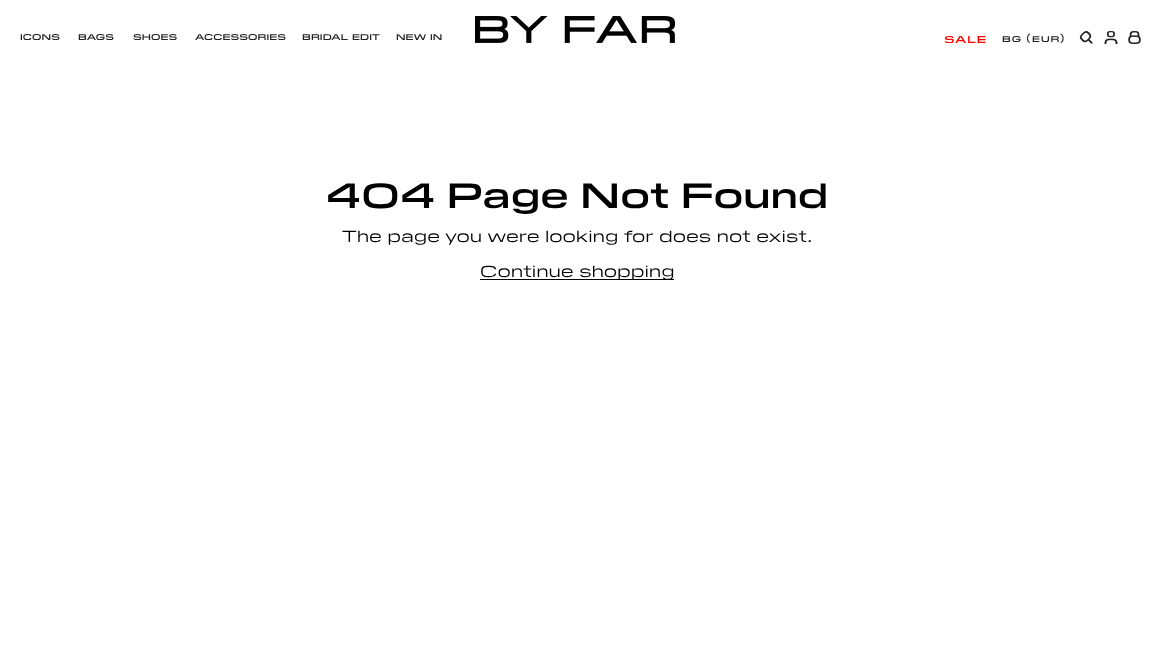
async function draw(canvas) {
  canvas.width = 1154
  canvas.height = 668
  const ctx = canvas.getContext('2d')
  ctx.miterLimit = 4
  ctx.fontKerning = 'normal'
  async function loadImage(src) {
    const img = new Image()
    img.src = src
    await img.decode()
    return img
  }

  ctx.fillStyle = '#fff'
  ctx.fillRect(0, 0, 1154, 668)
  ctx.letterSpacing = '0.1px'
  ctx.font = '600 8.4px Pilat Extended'
  ctx.fillStyle = '#222'
  ctx.fillText('ICONS', 20, 40)
  ctx.fillText('BAGS', 78, 40)
  ctx.fillText('SHOES', 133, 40)
  ctx.fillText('ACCESSORIES', 195, 40)
  ctx.fillText('BRIDAL', 302, 40)
  ctx.fillText('EDIT', 352, 40)
  ctx.fillText('NEW', 396, 40)
  ctx.fillText('IN', 430, 40)
  ctx.drawImage(await loadImage('image0.png'), 475, 16, 200, 27)
  ctx.letterSpacing = '1px'
  ctx.font = '600 10px Pilat Extended'
  ctx.fillStyle = '#f00'
  ctx.fillText('SALE', 944, 43)
  ctx.font = '600 8.4px Pilat Extended'
  ctx.fillStyle = '#222'
  ctx.fillText('BG', 1002, 42)
  ctx.font = '600 12px Pilat Extended'
  ctx.fillText('(', 1026, 42)
  ctx.font = '600 8.4px Pilat Extended'
  ctx.fillText('EUR', 1032, 42)
  ctx.font = '600 12px Pilat Extended'
  ctx.fillText(')', 1060, 42)
  ctx.drawImage(await loadImage('image1.png'), 1079, 31, 14, 13)
  ctx.drawImage(await loadImage('image2.png'), 1104, 31, 14, 13)
  ctx.drawImage(await loadImage('image3.png'), 1128, 31, 13, 13)
  ctx.letterSpacing = '0.9px'
  ctx.font = '600 35px Pilat Extended'
  ctx.fillStyle = '#000'
  ctx.fillText('404 Page Not Found', 326, 208)
  ctx.letterSpacing = '0.4px'
  ctx.font = '16px Pilat Extended'
  ctx.fillText('The page you were looking for does not exist.', 342, 242)
  ctx.fillRect(480, 279, 194, 1)
  ctx.fillText('Continue shopping', 480, 277)
}

draw(document.querySelector('canvas'))
